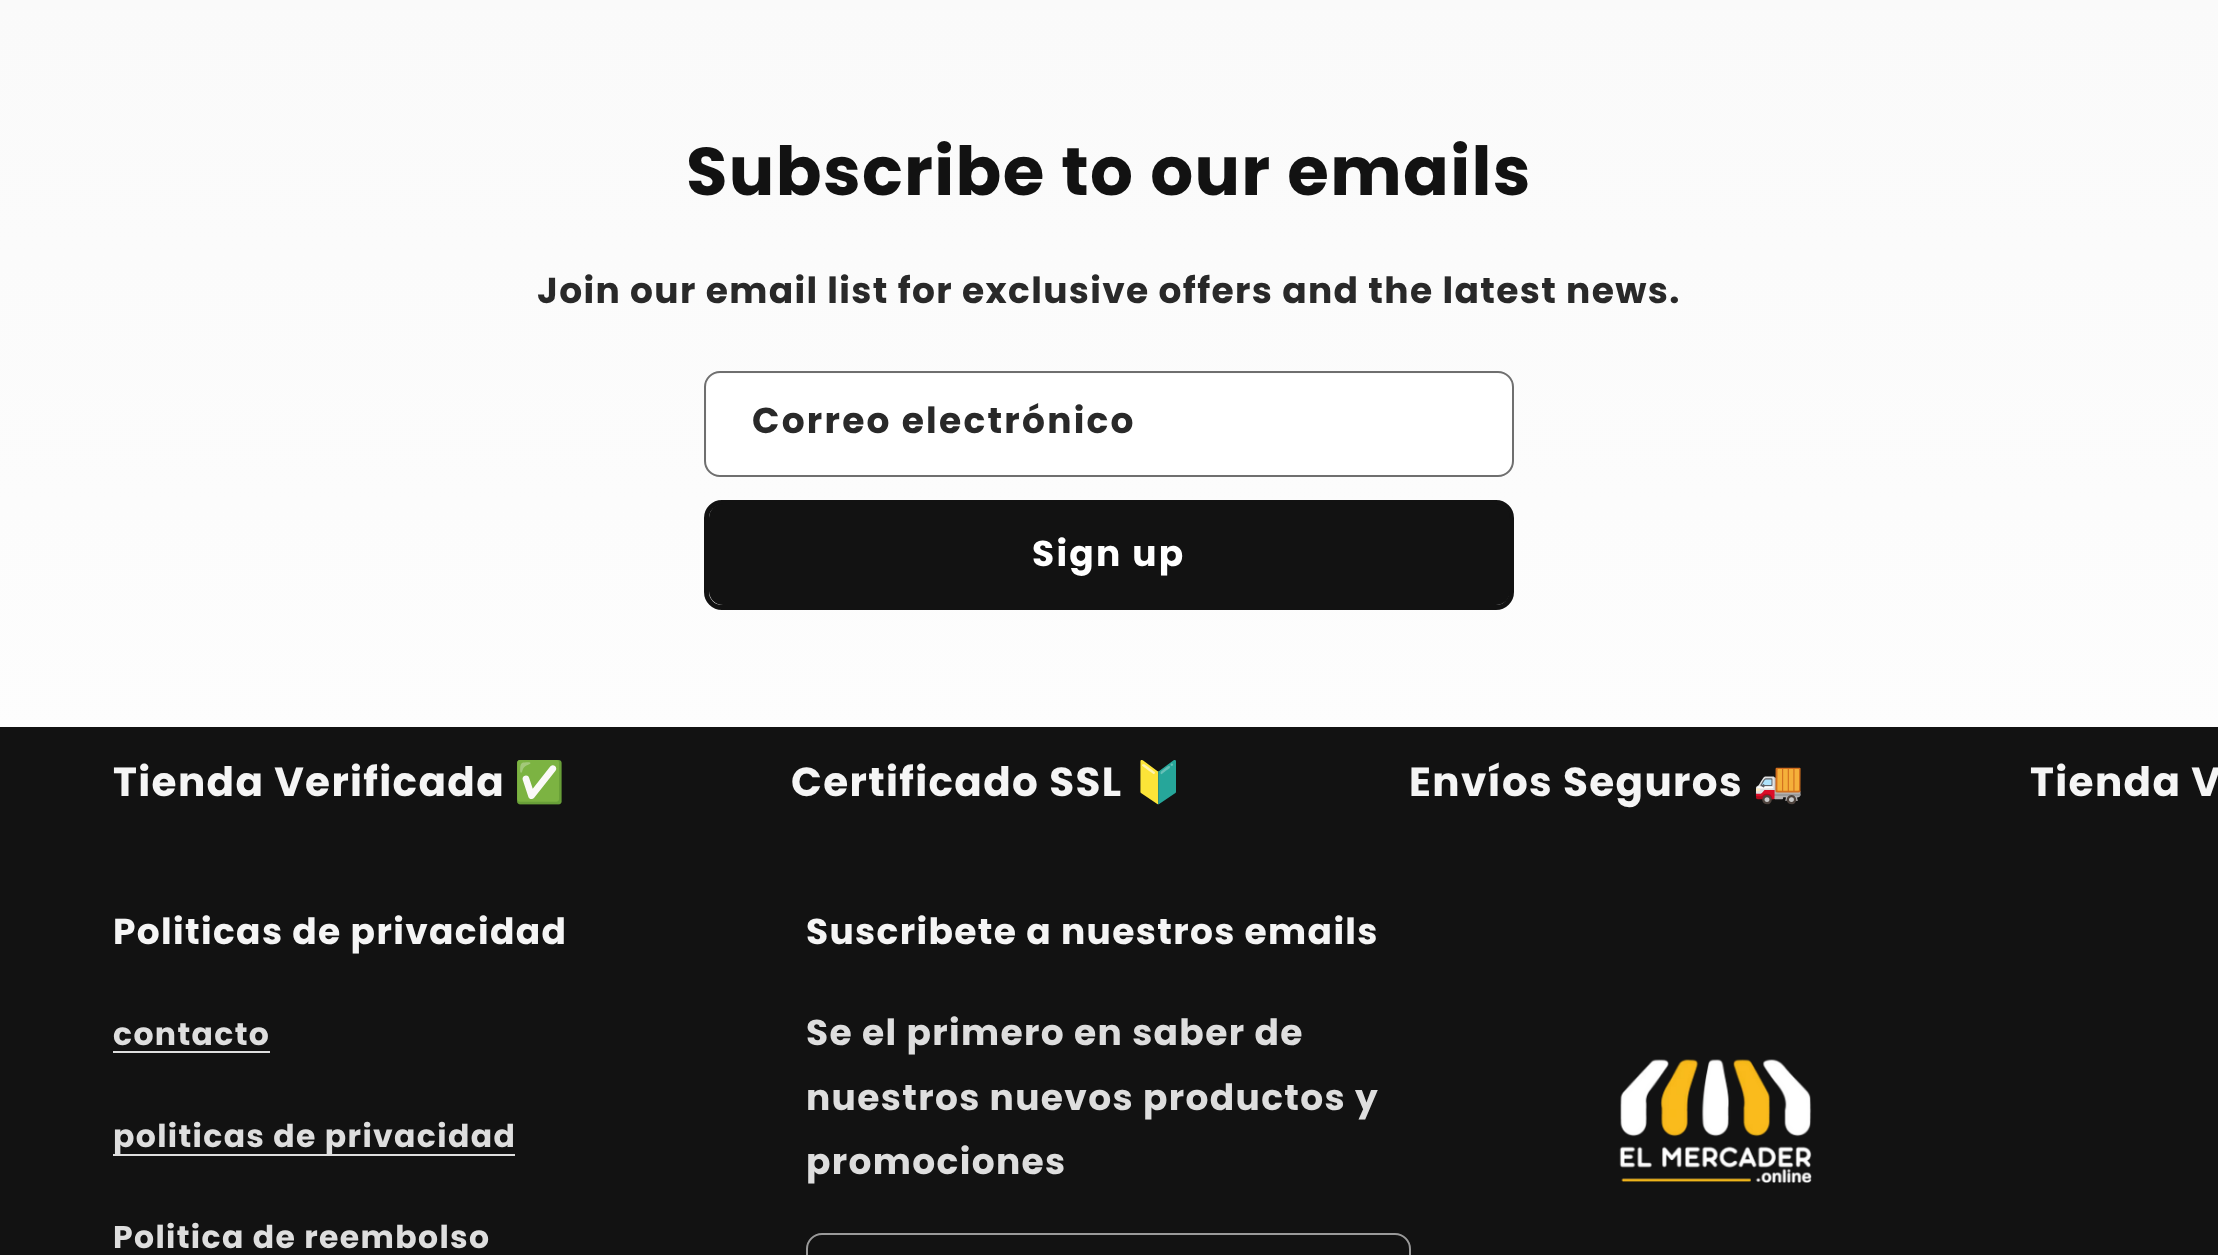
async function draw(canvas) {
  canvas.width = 2218
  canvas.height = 1255
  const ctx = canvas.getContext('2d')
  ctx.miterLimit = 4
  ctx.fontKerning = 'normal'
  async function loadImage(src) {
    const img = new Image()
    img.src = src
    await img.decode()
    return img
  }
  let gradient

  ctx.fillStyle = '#121212'
  ctx.fillRect(0, 0, 2218, 1255)
  gradient = ctx.createLinearGradient(1109, 0, 1109, 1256)
  gradient.addColorStop(0, '#fafafa')
  gradient.addColorStop(1, '#fff')
  ctx.fillStyle = gradient
  ctx.fillRect(0, 0, 2218, 727)
  ctx.letterSpacing = '1.35px'
  ctx.font = 'bold 67.5px Poppins'
  ctx.fillStyle = '#121212'
  ctx.fillText('Subscribe to our emails', 686, 195)
  ctx.font = 'bold 36px Poppins'
  ctx.fillStyle = '#292929'
  ctx.fillText('Join our email list for exclusive offers and the latest news.', 537, 303)
  ctx.fillStyle = '#fff'
  ctx.beginPath()
  ctx.roundRect(707, 374, 805, 101, 14)
  ctx.fill()
  ctx.beginPath()
  ctx.roundRect(705, 372, 808, 104, 15)
  ctx.strokeStyle = '#6f6f6f'
  ctx.lineWidth = 2
  ctx.stroke()
  ctx.letterSpacing = '2.25px'
  ctx.fillStyle = '#292929'
  ctx.fillText('Correo electrónico', 752, 433)
  ctx.fillStyle = '#fff'
  ctx.beginPath()
  ctx.roundRect(706.5, 502.5, 805, 105, 15.5)
  ctx.fill()
  ctx.strokeStyle = '#121212'
  ctx.lineWidth = 5
  ctx.stroke()
  ctx.fillStyle = '#121212'
  ctx.beginPath()
  ctx.roundRect(709, 504, 801, 101, 14)
  ctx.fill()
  ctx.fillStyle = '#fff'
  ctx.fillText('Sign up', 1032, 566)
  ctx.letterSpacing = '1.35px'
  ctx.font = 'bold 40.5px Poppins'
  ctx.fillStyle = '#f5f5f5'
  ctx.fillText('Tienda Verificada', 113, 796)
  ctx.font = 'bold 40.5px Noto Color Emoji'
  ctx.fillText('✅', 514, 796)
  ctx.font = 'bold 40.5px Poppins'
  ctx.fillText('Certificado SSL', 791, 796)
  ctx.font = 'bold 40.5px Noto Color Emoji'
  ctx.fillText('🔰', 1133, 796)
  ctx.font = 'bold 40.5px Poppins'
  ctx.fillText('Envíos Seguros', 1409, 796)
  ctx.font = 'bold 40.5px Noto Color Emoji'
  ctx.fillText('🚚', 1753, 796)
  ctx.font = 'bold 40.5px Poppins'
  ctx.fillText('Tienda V', 2030, 796)
  ctx.font = 'bold 36px Poppins'
  ctx.fillText('Politicas de privacidad', 113, 944)
  ctx.font = 'bold 31.5px Poppins'
  ctx.fillStyle = '#dedede'
  ctx.fillText('contacto', 113, 1045)
  ctx.fillRect(113, 1051, 157, 2)
  ctx.fillRect(113, 1154, 402, 2)
  ctx.fillText('politicas de privacidad', 113, 1147)
  ctx.fillText('Politica de reembolso', 113, 1248)
  ctx.font = 'bold 36px Poppins'
  ctx.fillStyle = '#f5f5f5'
  ctx.fillText('Suscribete a nuestros emails', 806, 944)
  ctx.fillStyle = '#dedede'
  ctx.fillText('Se el primero en saber de', 806, 1045)
  ctx.fillText('nuestros nuevos productos y', 806, 1110)
  ctx.fillText('promociones', 806, 1174)
  ctx.beginPath()
  ctx.roundRect(807, 1234, 603, 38, 15)
  ctx.strokeStyle = '#9a9a9a'
  ctx.lineWidth = 2
  ctx.stroke()
  ctx.drawImage(await loadImage('image0.png'), 1619, 1059, 193, 124)
}

draw(document.querySelector('canvas'))
